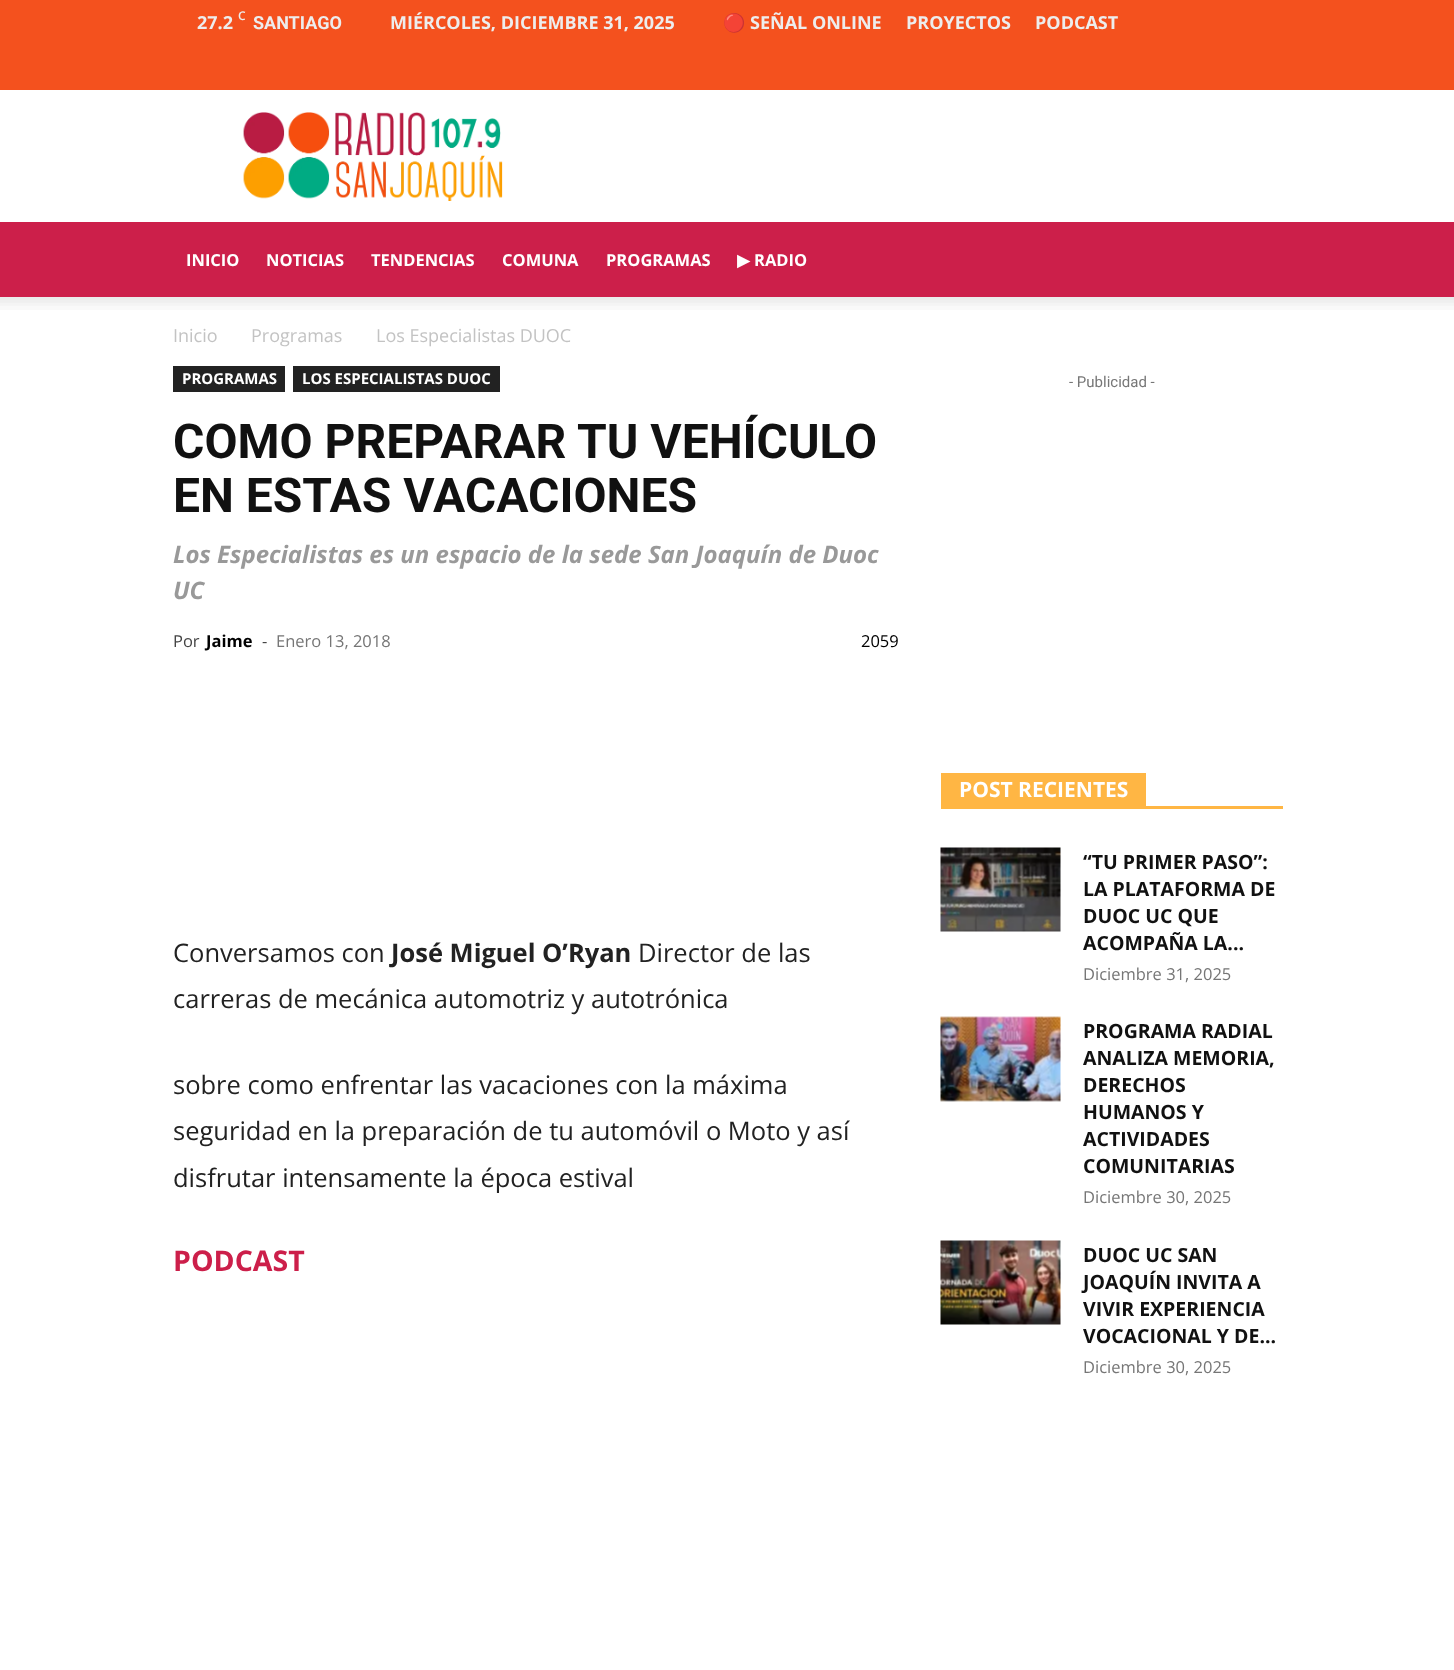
async function draw(canvas) {
  canvas.width = 1454
  canvas.height = 1670
  const ctx = canvas.getContext('2d')
  ctx.miterLimit = 4
  ctx.fontKerning = 'normal'
  async function loadImage(src) {
    const img = new Image()
    img.src = src
    await img.decode()
    return img
  }

  ctx.fillStyle = '#fff'
  ctx.fillRect(0, 0, 1454, 1670)
  ctx.fillStyle = '#f4511e'
  ctx.fillRect(0, 0, 1454, 90)
  ctx.font = 'bold 18px Open Sans'
  ctx.fillStyle = '#ededed'
  ctx.fillText('27.2', 197, 29)
  ctx.font = '600 12px Open Sans'
  ctx.fillText('C', 238, 20)
  ctx.font = 'bold 18px Roboto'
  ctx.fillText('SANTIAGO', 253, 29)
  ctx.font = 'bold 18px Open Sans'
  ctx.fillText('MIÉRCOLES, DICIEMBRE 31, 2025', 390, 29)
  ctx.font = 'bold 18px Noto Color Emoji'
  ctx.fillText('🔴', 723, 29)
  ctx.font = 'bold 18px Open Sans'
  ctx.fillText('SEÑAL ONLINE', 750, 29)
  ctx.fillText('PROYECTOS', 906, 29)
  ctx.fillText('PODCAST', 1035, 29)
  ctx.drawImage(await loadImage('image0.png'), 243, 112, 260, 89)
  ctx.fillStyle = '#cc1f4a'
  ctx.fillRect(0, 222, 1454, 75)
  ctx.font = 'bold 16.5px Open Sans'
  ctx.fillStyle = '#fff'
  ctx.fillText('INICIO', 186, 266)
  ctx.fillText('NOTICIAS', 266, 266)
  ctx.fillText('TENDENCIAS', 371, 266)
  ctx.fillText('COMUNA', 502, 266)
  ctx.fillText('PROGRAMAS', 606, 266)
  ctx.font = 'bold 16.5px DejaVu Sans'
  ctx.fillText('▶', 737, 266)
  ctx.font = 'bold 16.5px Open Sans'
  ctx.fillText('RADIO', 754, 266)
  ctx.drawImage(await loadImage('image1.png'), 0, 297, 1454, 13)
  ctx.font = '18px Open Sans'
  ctx.fillStyle = '#c3c3c3'
  ctx.fillText('Inicio', 173, 342)
  ctx.fillText('Programas', 251, 342)
  ctx.fillText('Los Especialistas DUOC', 376, 342)
  ctx.fillStyle = '#222'
  ctx.fillRect(173, 366, 112, 26)
  ctx.font = 'bold 15px Open Sans'
  ctx.fillStyle = '#fff'
  ctx.fillText('PROGRAMAS', 182, 384)
  ctx.fillStyle = '#222'
  ctx.fillRect(293, 366, 207, 26)
  ctx.fillStyle = '#fff'
  ctx.fillText('LOS ESPECIALISTAS DUOC', 302, 384)
  ctx.font = 'bold 48px Roboto'
  ctx.fillStyle = '#111'
  ctx.fillText('COMO PREPARAR TU VEHÍCULO', 173, 458)
  ctx.fillText('EN ESTAS VACACIONES', 173, 512)
  ctx.font = 'italic bold 24px Open Sans'
  ctx.fillStyle = '#999'
  ctx.fillText('Los Especialistas es un espacio de la sede San Joaquín de Duoc', 173, 563)
  ctx.fillText('UC', 173, 599)
  ctx.font = '16.5px Open Sans'
  ctx.fillStyle = '#444'
  ctx.fillText('Por', 173, 647)
  ctx.font = 'bold 16.5px Open Sans'
  ctx.fillStyle = '#000'
  ctx.fillText('Jaime', 206, 647)
  ctx.font = '16.5px Open Sans'
  ctx.fillStyle = '#444'
  ctx.fillText('-', 262, 647)
  ctx.fillStyle = '#767676'
  ctx.fillText('Enero 13, 2018', 276, 647)
  ctx.fillStyle = '#000'
  ctx.fillText('2059', 861, 647)
  ctx.font = '25.5px Open Sans'
  ctx.fillStyle = '#222'
  ctx.fillText('Conversamos con', 173, 962)
  ctx.font = 'bold 25.5px Open Sans'
  ctx.fillText('José Miguel O’Ryan', 391, 962)
  ctx.font = '25.5px Open Sans'
  ctx.fillText('Director de las', 638, 962)
  ctx.fillText('carreras de mecánica automotriz y autotrónica', 173, 1008)
  ctx.fillText('sobre como enfrentar las vacaciones con la máxima', 173, 1094)
  ctx.fillText('seguridad en la preparación de tu automóvil o Moto y así', 173, 1140)
  ctx.fillText('disfrutar intensamente la época estival', 173, 1187)
  ctx.font = 'bold 28.5px Open Sans'
  ctx.fillStyle = '#cc1f4a'
  ctx.fillText('PODCAST', 173, 1271)
  ctx.font = '15px Roboto'
  ctx.fillStyle = '#767676'
  ctx.fillText('- Publicidad -', 1069, 387)
  ctx.fillStyle = '#ffb644'
  ctx.fillRect(941, 806, 342, 3)
  ctx.fillRect(941, 773, 205, 33)
  ctx.font = 'bold 21px Open Sans'
  ctx.fillStyle = '#fff'
  ctx.fillText('POST RECIENTES', 959, 797)
  ctx.drawImage(await loadImage('image2.png'), 940, 847, 121, 85)
  ctx.font = 'bold 19.5px Open Sans'
  ctx.fillStyle = '#111'
  ctx.fillText('“TU PRIMER PASO”:', 1083, 869)
  ctx.fillText('LA PLATAFORMA DE', 1083, 896)
  ctx.fillText('DUOC UC QUE', 1083, 923)
  ctx.fillText('ACOMPAÑA LA...', 1083, 950)
  ctx.font = '16.5px Open Sans'
  ctx.fillStyle = '#767676'
  ctx.fillText('Diciembre 31, 2025', 1083, 980)
  ctx.drawImage(await loadImage('image3.png'), 940, 1016, 121, 86)
  ctx.font = 'bold 19.5px Open Sans'
  ctx.fillStyle = '#111'
  ctx.fillText('PROGRAMA RADIAL', 1083, 1038)
  ctx.fillText('ANALIZA MEMORIA,', 1083, 1065)
  ctx.fillText('DERECHOS', 1083, 1092)
  ctx.fillText('HUMANOS Y', 1083, 1119)
  ctx.fillText('ACTIVIDADES', 1083, 1146)
  ctx.fillText('COMUNITARIAS', 1083, 1173)
  ctx.font = '16.5px Open Sans'
  ctx.fillStyle = '#767676'
  ctx.fillText('Diciembre 30, 2025', 1083, 1203)
  ctx.drawImage(await loadImage('image4.png'), 940, 1240, 121, 85)
  ctx.font = 'bold 19.5px Open Sans'
  ctx.fillStyle = '#111'
  ctx.fillText('DUOC UC SAN', 1083, 1262)
  ctx.fillText('JOAQUÍN INVITA A', 1083, 1289)
  ctx.fillText('VIVIR EXPERIENCIA', 1083, 1316)
  ctx.fillText('VOCACIONAL Y DE...', 1083, 1343)
  ctx.font = '16.5px Open Sans'
  ctx.fillStyle = '#767676'
  ctx.fillText('Diciembre 30, 2025', 1083, 1373)
}

draw(document.querySelector('canvas'))
